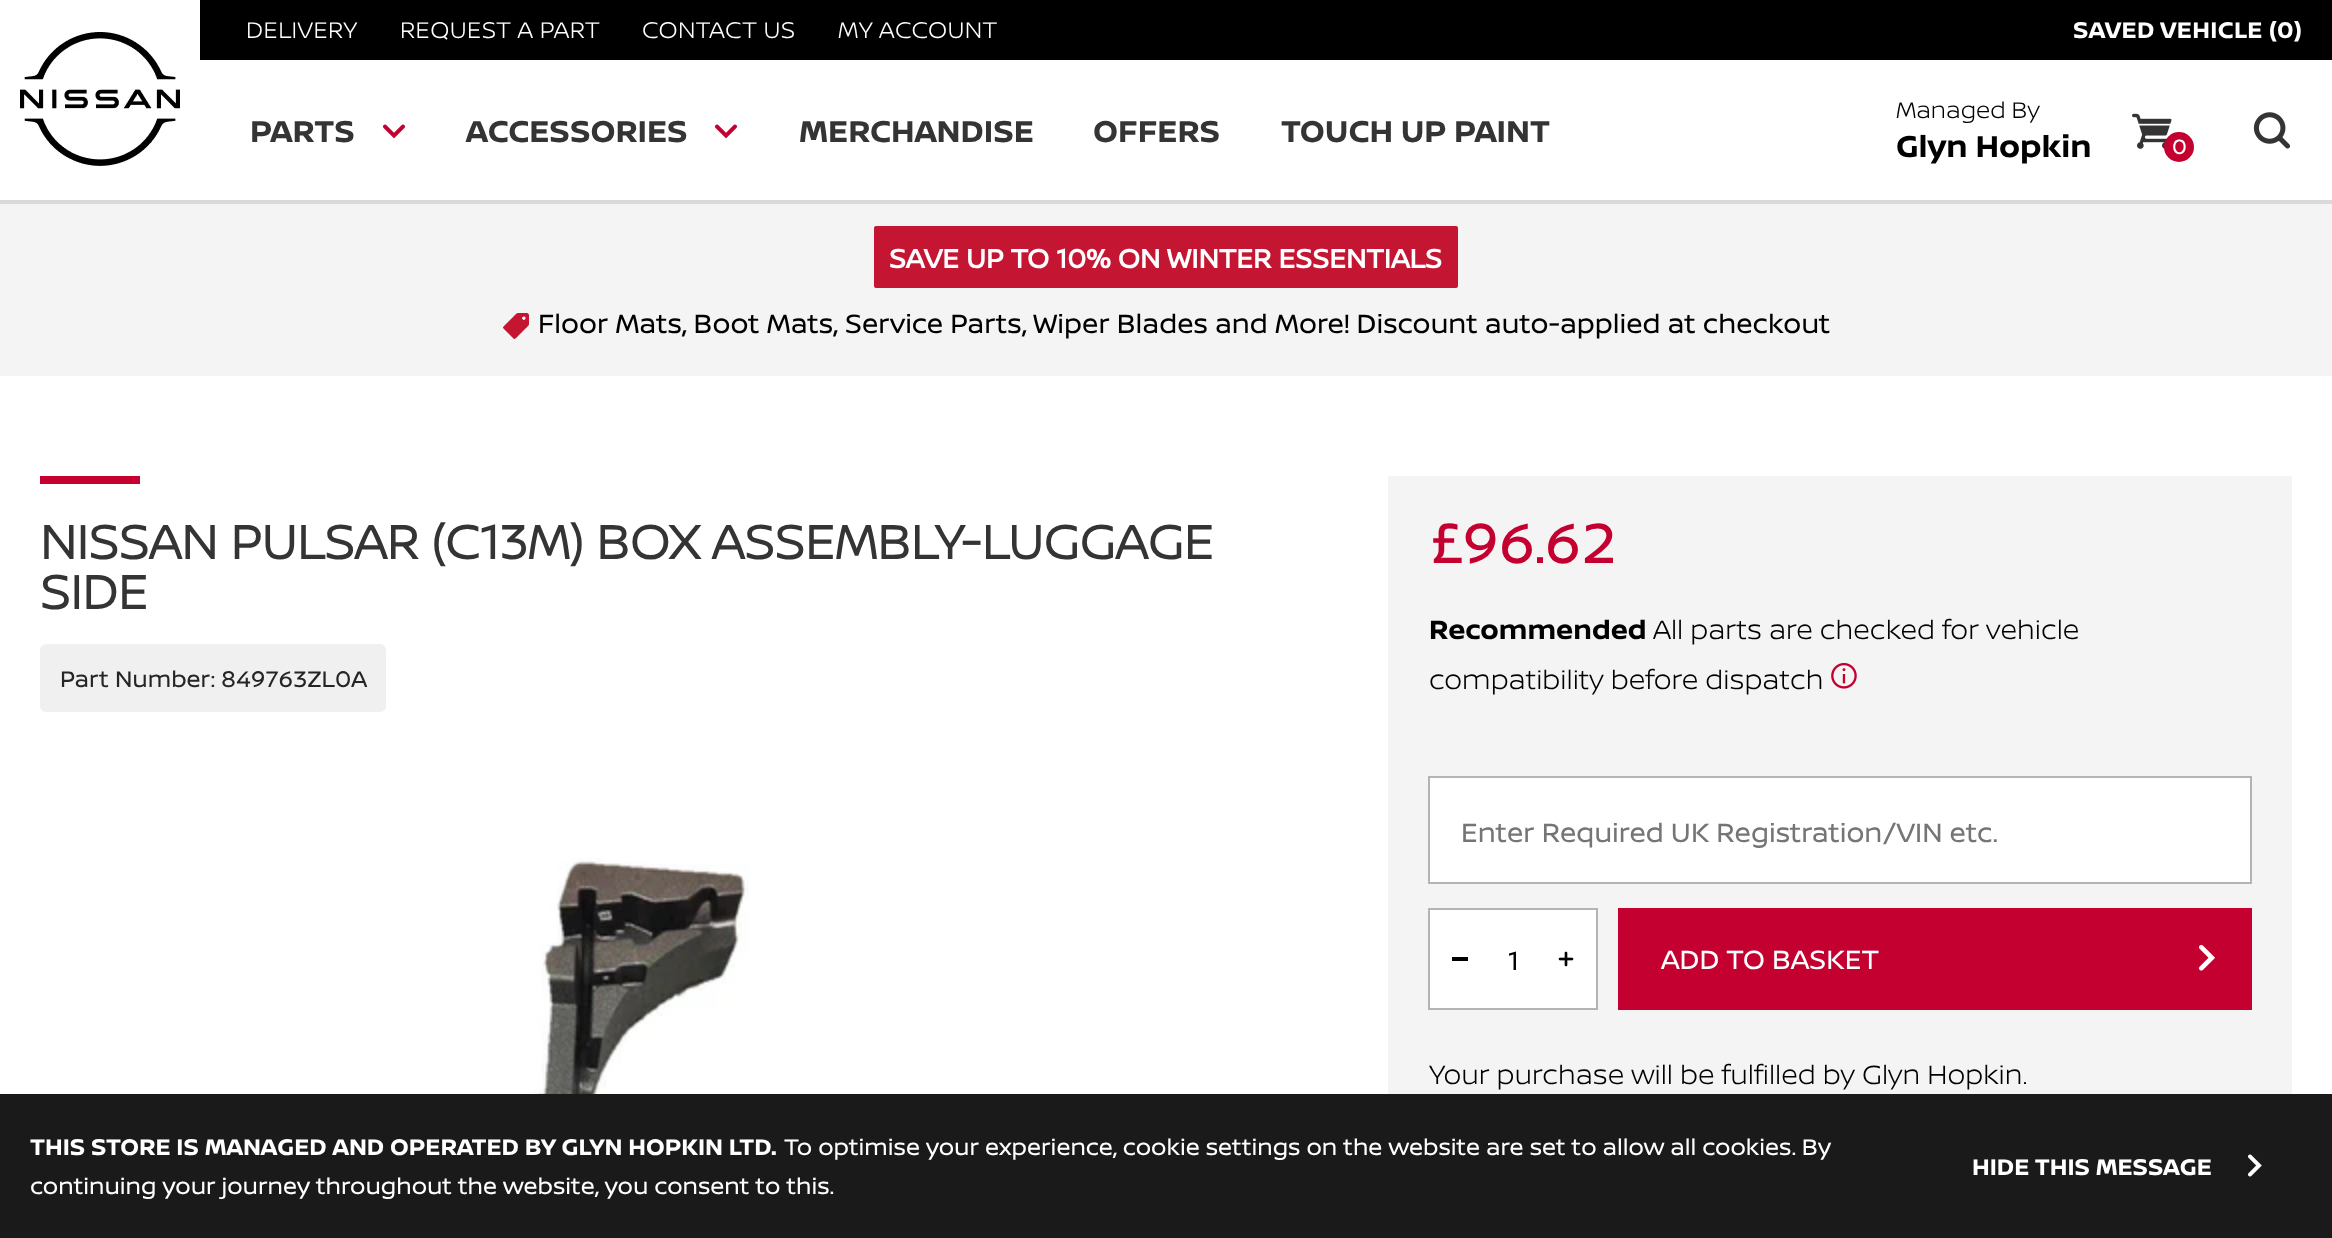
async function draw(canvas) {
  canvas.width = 2332
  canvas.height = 1238
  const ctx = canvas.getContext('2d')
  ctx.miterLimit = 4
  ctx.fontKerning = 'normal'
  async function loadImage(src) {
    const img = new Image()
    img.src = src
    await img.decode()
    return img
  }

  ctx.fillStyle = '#fff'
  ctx.fillRect(0, 0, 2332, 1238)
  ctx.fillStyle = '#000'
  ctx.fillRect(200, 0, 2132, 60)
  ctx.letterSpacing = '0.4px'
  ctx.font = '300 24px "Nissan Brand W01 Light"'
  ctx.fillStyle = '#fff'
  ctx.fillText('DELIVERY', 246, 38)
  ctx.fillText('REQUEST A PART', 400, 38)
  ctx.fillText('CONTACT US', 642, 38)
  ctx.fillText('MY ACCOUNT', 838, 38)
  ctx.font = 'bold 24px "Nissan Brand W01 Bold"'
  ctx.fillText('SAVED VEHICLE (0)', 2073, 38)
  ctx.fillStyle = '#d9d9d9'
  ctx.fillRect(0, 200, 2332, 2)
  ctx.drawImage(await loadImage('image0.png'), 0, 0, 200, 167)
  ctx.letterSpacing = '0px'
  ctx.font = 'bold 32px "Nissan Brand W01 Bold"'
  ctx.fillStyle = '#343434'
  ctx.fillText('PARTS', 250, 142)
  ctx.drawImage(await loadImage('image1.png'), 383, 124, 22, 15)
  ctx.fillText('ACCESSORIES', 466, 142)
  ctx.drawImage(await loadImage('image1.png'), 715, 124, 22, 15)
  ctx.fillText('MERCHANDISE', 799, 142)
  ctx.fillText('OFFERS', 1093, 142)
  ctx.fillText('TOUCH UP PAINT', 1281, 142)
  ctx.font = '300 24px "Nissan Brand W01 Light"'
  ctx.fillStyle = '#000'
  ctx.fillText('Managed By', 1896, 118)
  ctx.font = 'bold 32px "Nissan Brand W01 Bold"'
  ctx.fillText('Glyn Hopkin', 1896, 157)
  ctx.drawImage(await loadImage('image2.png'), 2132, 113, 40, 36)
  ctx.fillStyle = '#c3002f'
  ctx.beginPath()
  ctx.arc(2179, 147, 15, 0, 2 * Math.PI)
  ctx.fill()
  ctx.font = '22px "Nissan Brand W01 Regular"'
  ctx.fillStyle = '#fff'
  ctx.fillText('0', 2172, 154)
  ctx.drawImage(await loadImage('image3.png'), 2253, 112, 38, 37)
  ctx.fillStyle = '#1a1a1a'
  ctx.fillRect(0, 1094, 2332, 144)
  ctx.font = 'bold 24px "Nissan Brand W01 Bold"'
  ctx.fillStyle = '#fff'
  ctx.fillText('THIS STORE IS MANAGED AND OPERATED BY GLYN HOPKIN LTD.', 30, 1155)
  ctx.font = '24px "Nissan Brand W01 Regular"'
  ctx.fillText('To optimise your experience, cookie settings on the website are set to allow all cookies. By', 784, 1155)
  ctx.fillText('continuing your journey throughout the website, you consent to this.', 30, 1194)
  ctx.font = 'bold 24px "Nissan Brand W01 Bold"'
  ctx.fillText('HIDE THIS MESSAGE', 1972, 1175)
  ctx.drawImage(await loadImage('image4.png'), 2248, 1154, 14, 23)
  ctx.fillStyle = '#f4f4f4'
  ctx.fillRect(0, 204, 2332, 172)
  ctx.fillStyle = '#dadada'
  ctx.fillRect(0, 202, 2332, 2)
  ctx.fillStyle = '#c41632'
  ctx.beginPath()
  ctx.roundRect(874, 226, 584, 62, 2)
  ctx.fill()
  ctx.font = 'bold 28px "Nissan Brand W01 Regular"'
  ctx.fillStyle = '#fff'
  ctx.fillText('SAVE UP TO 10% ON WINTER ESSENTIALS', 889, 268)
  ctx.drawImage(await loadImage('image5.png'), 503, 313, 26, 26)
  ctx.font = '28px "Nissan Brand W01 Regular"'
  ctx.fillStyle = '#000'
  ctx.fillText('Floor Mats, Boot Mats, Service Parts, Wiper Blades and More! Discount auto-applied at checkout', 538, 333)
  ctx.fillStyle = '#c3002f'
  ctx.fillRect(40, 476, 100, 8)
  ctx.letterSpacing = '0.2px'
  ctx.font = 'bold 50px "Nissan Brand W01 Light"'
  ctx.fillStyle = '#343434'
  ctx.fillText('NISSAN PULSAR (C13M) BOX ASSEMBLY-LUGGAGE', 40, 559)
  ctx.fillText('SIDE', 40, 609)
  ctx.fillStyle = '#f0f0f0'
  ctx.beginPath()
  ctx.roundRect(40, 644, 346, 68, 6)
  ctx.fill()
  ctx.letterSpacing = '0px'
  ctx.font = '24px "Nissan Brand W01 Regular"'
  ctx.fillStyle = '#252525'
  ctx.fillText('Part Number:', 60, 687)
  ctx.fillText('849763ZL0A', 221, 687)
  ctx.drawImage(await loadImage('image6.png'), 525, 858, 224, 236)
  ctx.fillStyle = '#f4f4f4'
  ctx.fillRect(1388, 476, 904, 618)
  ctx.font = '60px "Nissan Brand W01 Regular"'
  ctx.fillStyle = '#c3002f'
  ctx.fillText('£96.62', 1429, 563)
  ctx.font = 'bold 28px "Nissan Brand W01 Bold"'
  ctx.fillStyle = '#000'
  ctx.fillText('Recommended', 1429, 639)
  ctx.font = '300 28px "Nissan Brand W01 Light"'
  ctx.fillText('All parts are checked for vehicle', 1653, 639)
  ctx.fillText('compatibility before dispatch', 1429, 689)
  ctx.drawImage(await loadImage('image7.png'), 1831, 662, 26, 27)
  ctx.fillStyle = '#fff'
  ctx.beginPath()
  ctx.rect(1429, 777, 822, 106)
  ctx.fill()
  ctx.strokeStyle = '#b4b4b4'
  ctx.lineWidth = 2
  ctx.stroke()
  ctx.font = '28px "Nissan Brand W01 Regular"'
  ctx.fillStyle = '#757575'
  ctx.fillText('Enter Required UK Registration/VIN etc.', 1461, 842)
  ctx.fillStyle = '#fff'
  ctx.beginPath()
  ctx.rect(1429, 909, 168, 100)
  ctx.fill()
  ctx.stroke()
  ctx.fillStyle = '#000'
  ctx.fillRect(1452, 957, 16, 4)
  ctx.drawImage(await loadImage('image8.png'), 1558, 951, 16, 16)
  ctx.fillText('1', 1508, 970)
  ctx.fillStyle = '#c3002f'
  ctx.fillRect(1618, 908, 634, 102)
  ctx.fillStyle = '#fff'
  ctx.fillText('ADD TO BASKET', 1661, 969)
  ctx.drawImage(await loadImage('image9.png'), 2199, 944, 16, 27)
  ctx.font = '300 28px "Nissan Brand W01 Light"'
  ctx.fillStyle = '#000'
  ctx.fillText('Your purchase will be fulfilled by Glyn Hopkin.', 1429, 1084)
}

draw(document.querySelector('canvas'))
